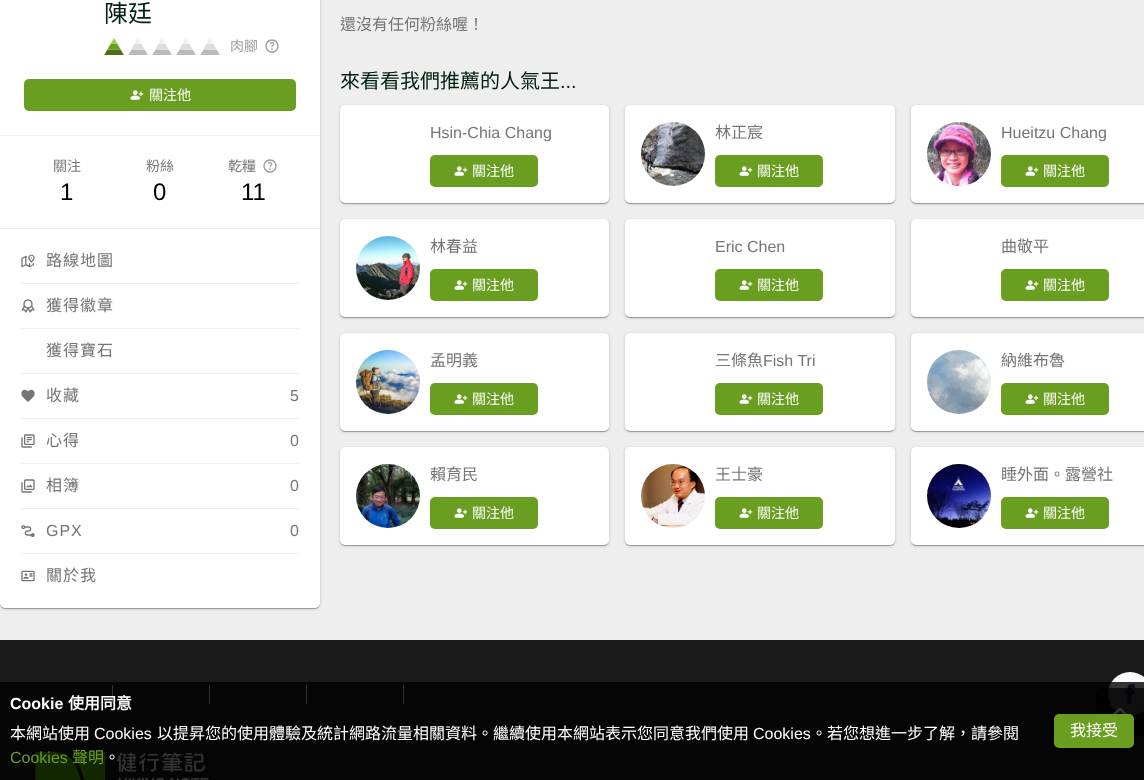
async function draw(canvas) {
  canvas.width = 1144
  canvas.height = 780
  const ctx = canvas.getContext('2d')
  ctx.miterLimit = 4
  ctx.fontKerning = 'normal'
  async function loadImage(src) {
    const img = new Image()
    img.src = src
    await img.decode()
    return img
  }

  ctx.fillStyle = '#eee'
  ctx.fillRect(0, 0, 1144, 780)
  ctx.fillStyle = '#00000033'
  ctx.filter = 'blur(1.5px)'
  ctx.beginPath()
  ctx.roundRect(0, -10, 320, 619, 5)
  ctx.fill()
  ctx.filter = 'none'
  ctx.fillStyle = '#0000001f'
  ctx.filter = 'blur(0.5px)'
  ctx.beginPath()
  ctx.roundRect(1, -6, 318, 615, 4)
  ctx.fill()
  ctx.filter = 'none'
  ctx.fillStyle = '#00000024'
  ctx.filter = 'blur(0.5px)'
  ctx.beginPath()
  ctx.roundRect(0, -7, 320, 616, 5)
  ctx.fill()
  ctx.filter = 'none'
  ctx.fillStyle = '#fff'
  ctx.beginPath()
  ctx.roundRect(0, -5, 320, 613, 5)
  ctx.fill()
  ctx.font = '24px Noto Sans CJK TC'
  ctx.fillStyle = '#01200f'
  ctx.fillText('陳廷', 104, 22)
  ctx.drawImage(await loadImage('image0.png'), 104, 38, 20, 17)
  ctx.drawImage(await loadImage('image1.png'), 128, 38, 20, 17)
  ctx.drawImage(await loadImage('image1.png'), 152, 38, 20, 17)
  ctx.drawImage(await loadImage('image1.png'), 176, 38, 20, 17)
  ctx.drawImage(await loadImage('image1.png'), 200, 38, 20, 17)
  ctx.font = '14px Noto Sans CJK TC'
  ctx.fillStyle = '#9e9e9e'
  ctx.fillText('肉腳', 230, 51)
  ctx.drawImage(await loadImage('image2.png'), 265, 39, 14, 14)
  ctx.fillStyle = '#6a9e20'
  ctx.beginPath()
  ctx.roundRect(24, 79, 272, 32, 5)
  ctx.fill()
  ctx.drawImage(await loadImage('image3.png'), 130, 90, 14, 10)
  ctx.fillStyle = '#fff'
  ctx.fillText('關注他', 149, 100)
  ctx.fillStyle = '#eee'
  ctx.fillRect(0, 135, 320, 1)
  ctx.fillStyle = '#757575'
  ctx.fillText('關注', 53, 171)
  ctx.font = '24px Liberation Sans'
  ctx.fillStyle = '#000'
  ctx.fillText('1', 60, 200)
  ctx.font = '14px Noto Sans CJK TC'
  ctx.fillStyle = '#757575'
  ctx.fillText('粉絲', 146, 171)
  ctx.font = '24px Liberation Sans'
  ctx.fillStyle = '#000'
  ctx.fillText('0', 153, 200)
  ctx.font = '14px Noto Sans CJK TC'
  ctx.fillStyle = '#757575'
  ctx.fillText('乾糧', 228, 171)
  ctx.drawImage(await loadImage('image4.png'), 263, 159, 14, 14)
  ctx.font = '24px Liberation Sans'
  ctx.fillStyle = '#000'
  ctx.fillText('11', 241, 200)
  ctx.fillStyle = '#eee'
  ctx.fillRect(0, 228, 320, 1)
  ctx.drawImage(await loadImage('image5.png'), 21, 254, 14, 14)
  ctx.letterSpacing = '1px'
  ctx.font = '16px Noto Sans CJK TC'
  ctx.fillStyle = '#757575'
  ctx.fillText('路線地圖', 46, 266)
  ctx.fillStyle = '#eee'
  ctx.fillRect(20, 283, 280, 1)
  ctx.drawImage(await loadImage('image6.png'), 21, 299, 14, 14)
  ctx.fillStyle = '#757575'
  ctx.fillText('獲得徽章', 46, 311)
  ctx.fillStyle = '#eee'
  ctx.fillRect(20, 328, 280, 1)
  ctx.fillStyle = '#757575'
  ctx.fillText('獲得寶石', 46, 356)
  ctx.fillStyle = '#eee'
  ctx.fillRect(20, 373, 280, 1)
  ctx.drawImage(await loadImage('image7.png'), 21, 389, 14, 13)
  ctx.fillStyle = '#757575'
  ctx.fillText('收藏', 46, 401)
  ctx.font = '16px Liberation Sans'
  ctx.fillText('5', 290, 401)
  ctx.fillStyle = '#eee'
  ctx.fillRect(20, 418, 280, 1)
  ctx.drawImage(await loadImage('image8.png'), 21, 434, 14, 14)
  ctx.font = '16px Noto Sans CJK TC'
  ctx.fillStyle = '#757575'
  ctx.fillText('心得', 46, 446)
  ctx.font = '16px Liberation Sans'
  ctx.fillText('0', 290, 446)
  ctx.fillStyle = '#eee'
  ctx.fillRect(20, 463, 280, 1)
  ctx.drawImage(await loadImage('image9.png'), 21, 479, 14, 14)
  ctx.font = '16px Noto Sans CJK TC'
  ctx.fillStyle = '#757575'
  ctx.fillText('相簿', 46, 491)
  ctx.font = '16px Liberation Sans'
  ctx.fillText('0', 290, 491)
  ctx.fillStyle = '#eee'
  ctx.fillRect(20, 508, 280, 1)
  ctx.drawImage(await loadImage('image10.png'), 21, 525, 14, 12)
  ctx.fillStyle = '#757575'
  ctx.fillText('GPX', 46, 536)
  ctx.fillText('0', 290, 536)
  ctx.fillStyle = '#eee'
  ctx.fillRect(20, 553, 280, 1)
  ctx.drawImage(await loadImage('image11.png'), 21, 570, 14, 12)
  ctx.font = '16px Noto Sans CJK TC'
  ctx.fillStyle = '#757575'
  ctx.fillText('關於我', 46, 581)
  ctx.letterSpacing = '0px'
  ctx.fillText('還沒有任何粉絲喔！', 340, 30)
  ctx.font = '20px Noto Sans CJK TC'
  ctx.fillStyle = '#01200f'
  ctx.fillText('來看看我們推薦的人氣王', 340, 88)
  ctx.font = '20px Liberation Sans'
  ctx.fillText('...', 560, 88)
  ctx.fillStyle = '#00000033'
  ctx.filter = 'blur(1.5px)'
  ctx.beginPath()
  ctx.roundRect(340, 106, 269, 98, 5)
  ctx.fill()
  ctx.filter = 'none'
  ctx.fillStyle = '#0000001f'
  ctx.filter = 'blur(0.5px)'
  ctx.beginPath()
  ctx.roundRect(341, 108, 267, 96, 4)
  ctx.fill()
  ctx.filter = 'none'
  ctx.fillStyle = '#00000024'
  ctx.filter = 'blur(0.5px)'
  ctx.beginPath()
  ctx.roundRect(340, 106, 269, 98, 5)
  ctx.fill()
  ctx.filter = 'none'
  ctx.fillStyle = '#fff'
  ctx.beginPath()
  ctx.roundRect(340, 105, 269, 98, 5)
  ctx.fill()
  ctx.font = '16px Liberation Sans'
  ctx.fillStyle = '#757575'
  ctx.fillText('Hsin-Chia Chang', 430, 138)
  ctx.fillStyle = '#6a9e20'
  ctx.beginPath()
  ctx.roundRect(430, 155, 108, 32, 5)
  ctx.fill()
  ctx.drawImage(await loadImage('image3.png'), 454, 166, 14, 10)
  ctx.font = '14px Noto Sans CJK TC'
  ctx.fillStyle = '#fff'
  ctx.fillText('關注他', 472, 176)
  ctx.fillStyle = '#00000033'
  ctx.filter = 'blur(1.5px)'
  ctx.beginPath()
  ctx.roundRect(625, 106, 270, 98, 5)
  ctx.fill()
  ctx.filter = 'none'
  ctx.fillStyle = '#0000001f'
  ctx.filter = 'blur(0.5px)'
  ctx.beginPath()
  ctx.roundRect(626, 108, 268, 96, 4)
  ctx.fill()
  ctx.filter = 'none'
  ctx.fillStyle = '#00000024'
  ctx.filter = 'blur(0.5px)'
  ctx.beginPath()
  ctx.roundRect(625, 106, 270, 98, 5)
  ctx.fill()
  ctx.filter = 'none'
  ctx.fillStyle = '#fff'
  ctx.beginPath()
  ctx.roundRect(625, 105, 270, 98, 5)
  ctx.fill()
  ctx.drawImage(await loadImage('image12.png'), 641, 122, 64, 64)
  ctx.font = '16px Noto Sans CJK TC'
  ctx.fillStyle = '#757575'
  ctx.fillText('林正宸', 715, 138)
  ctx.fillStyle = '#6a9e20'
  ctx.beginPath()
  ctx.roundRect(715, 155, 108, 32, 5)
  ctx.fill()
  ctx.drawImage(await loadImage('image3.png'), 739, 166, 14, 10)
  ctx.font = '14px Noto Sans CJK TC'
  ctx.fillStyle = '#fff'
  ctx.fillText('關注他', 757, 176)
  ctx.fillStyle = '#00000033'
  ctx.filter = 'blur(1.5px)'
  ctx.beginPath()
  ctx.roundRect(911, 106, 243, 98, 5)
  ctx.fill()
  ctx.filter = 'none'
  ctx.fillStyle = '#0000001f'
  ctx.filter = 'blur(0.5px)'
  ctx.beginPath()
  ctx.roundRect(912, 108, 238, 96, 4)
  ctx.fill()
  ctx.filter = 'none'
  ctx.fillStyle = '#00000024'
  ctx.filter = 'blur(0.5px)'
  ctx.beginPath()
  ctx.roundRect(911, 106, 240, 98, 5)
  ctx.fill()
  ctx.filter = 'none'
  ctx.fillStyle = '#fff'
  ctx.beginPath()
  ctx.roundRect(911, 105, 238, 98, 5)
  ctx.fill()
  ctx.drawImage(await loadImage('image13.png'), 927, 122, 64, 64)
  ctx.font = '16px Liberation Sans'
  ctx.fillStyle = '#757575'
  ctx.fillText('Hueitzu Chang', 1001, 138)
  ctx.fillStyle = '#6a9e20'
  ctx.beginPath()
  ctx.roundRect(1001, 155, 108, 32, 5)
  ctx.fill()
  ctx.drawImage(await loadImage('image3.png'), 1025, 166, 14, 10)
  ctx.font = '14px Noto Sans CJK TC'
  ctx.fillStyle = '#fff'
  ctx.fillText('關注他', 1043, 176)
  ctx.fillStyle = '#00000033'
  ctx.filter = 'blur(1.5px)'
  ctx.beginPath()
  ctx.roundRect(340, 220, 269, 98, 5)
  ctx.fill()
  ctx.filter = 'none'
  ctx.fillStyle = '#0000001f'
  ctx.filter = 'blur(0.5px)'
  ctx.beginPath()
  ctx.roundRect(341, 222, 267, 96, 4)
  ctx.fill()
  ctx.filter = 'none'
  ctx.fillStyle = '#00000024'
  ctx.filter = 'blur(0.5px)'
  ctx.beginPath()
  ctx.roundRect(340, 220, 269, 98, 5)
  ctx.fill()
  ctx.filter = 'none'
  ctx.fillStyle = '#fff'
  ctx.beginPath()
  ctx.roundRect(340, 219, 269, 98, 5)
  ctx.fill()
  ctx.drawImage(await loadImage('image14.png'), 356, 236, 64, 64)
  ctx.font = '16px Noto Sans CJK TC'
  ctx.fillStyle = '#757575'
  ctx.fillText('林春益', 430, 252)
  ctx.fillStyle = '#6a9e20'
  ctx.beginPath()
  ctx.roundRect(430, 269, 108, 32, 5)
  ctx.fill()
  ctx.drawImage(await loadImage('image3.png'), 454, 280, 14, 10)
  ctx.font = '14px Noto Sans CJK TC'
  ctx.fillStyle = '#fff'
  ctx.fillText('關注他', 472, 290)
  ctx.fillStyle = '#00000033'
  ctx.filter = 'blur(1.5px)'
  ctx.beginPath()
  ctx.roundRect(625, 220, 270, 98, 5)
  ctx.fill()
  ctx.filter = 'none'
  ctx.fillStyle = '#0000001f'
  ctx.filter = 'blur(0.5px)'
  ctx.beginPath()
  ctx.roundRect(626, 222, 268, 96, 4)
  ctx.fill()
  ctx.filter = 'none'
  ctx.fillStyle = '#00000024'
  ctx.filter = 'blur(0.5px)'
  ctx.beginPath()
  ctx.roundRect(625, 220, 270, 98, 5)
  ctx.fill()
  ctx.filter = 'none'
  ctx.fillStyle = '#fff'
  ctx.beginPath()
  ctx.roundRect(625, 219, 270, 98, 5)
  ctx.fill()
  ctx.font = '16px Liberation Sans'
  ctx.fillStyle = '#757575'
  ctx.fillText('Eric Chen', 715, 252)
  ctx.fillStyle = '#6a9e20'
  ctx.beginPath()
  ctx.roundRect(715, 269, 108, 32, 5)
  ctx.fill()
  ctx.drawImage(await loadImage('image3.png'), 739, 280, 14, 10)
  ctx.font = '14px Noto Sans CJK TC'
  ctx.fillStyle = '#fff'
  ctx.fillText('關注他', 757, 290)
  ctx.fillStyle = '#00000033'
  ctx.filter = 'blur(1.5px)'
  ctx.beginPath()
  ctx.roundRect(911, 220, 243, 98, 5)
  ctx.fill()
  ctx.filter = 'none'
  ctx.fillStyle = '#0000001f'
  ctx.filter = 'blur(0.5px)'
  ctx.beginPath()
  ctx.roundRect(912, 222, 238, 96, 4)
  ctx.fill()
  ctx.filter = 'none'
  ctx.fillStyle = '#00000024'
  ctx.filter = 'blur(0.5px)'
  ctx.beginPath()
  ctx.roundRect(911, 220, 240, 98, 5)
  ctx.fill()
  ctx.filter = 'none'
  ctx.fillStyle = '#fff'
  ctx.beginPath()
  ctx.roundRect(911, 219, 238, 98, 5)
  ctx.fill()
  ctx.font = '16px Noto Sans CJK TC'
  ctx.fillStyle = '#757575'
  ctx.fillText('曲敬平', 1001, 252)
  ctx.fillStyle = '#6a9e20'
  ctx.beginPath()
  ctx.roundRect(1001, 269, 108, 32, 5)
  ctx.fill()
  ctx.drawImage(await loadImage('image3.png'), 1025, 280, 14, 10)
  ctx.font = '14px Noto Sans CJK TC'
  ctx.fillStyle = '#fff'
  ctx.fillText('關注他', 1043, 290)
  ctx.fillStyle = '#00000033'
  ctx.filter = 'blur(1.5px)'
  ctx.beginPath()
  ctx.roundRect(340, 334, 269, 98, 5)
  ctx.fill()
  ctx.filter = 'none'
  ctx.fillStyle = '#0000001f'
  ctx.filter = 'blur(0.5px)'
  ctx.beginPath()
  ctx.roundRect(341, 336, 267, 96, 4)
  ctx.fill()
  ctx.filter = 'none'
  ctx.fillStyle = '#00000024'
  ctx.filter = 'blur(0.5px)'
  ctx.beginPath()
  ctx.roundRect(340, 334, 269, 98, 5)
  ctx.fill()
  ctx.filter = 'none'
  ctx.fillStyle = '#fff'
  ctx.beginPath()
  ctx.roundRect(340, 333, 269, 98, 5)
  ctx.fill()
  ctx.drawImage(await loadImage('image15.png'), 356, 350, 64, 64)
  ctx.font = '16px Noto Sans CJK TC'
  ctx.fillStyle = '#757575'
  ctx.fillText('孟明義', 430, 366)
  ctx.fillStyle = '#6a9e20'
  ctx.beginPath()
  ctx.roundRect(430, 383, 108, 32, 5)
  ctx.fill()
  ctx.drawImage(await loadImage('image3.png'), 454, 394, 14, 10)
  ctx.font = '14px Noto Sans CJK TC'
  ctx.fillStyle = '#fff'
  ctx.fillText('關注他', 472, 404)
  ctx.fillStyle = '#00000033'
  ctx.filter = 'blur(1.5px)'
  ctx.beginPath()
  ctx.roundRect(625, 334, 270, 98, 5)
  ctx.fill()
  ctx.filter = 'none'
  ctx.fillStyle = '#0000001f'
  ctx.filter = 'blur(0.5px)'
  ctx.beginPath()
  ctx.roundRect(626, 336, 268, 96, 4)
  ctx.fill()
  ctx.filter = 'none'
  ctx.fillStyle = '#00000024'
  ctx.filter = 'blur(0.5px)'
  ctx.beginPath()
  ctx.roundRect(625, 334, 270, 98, 5)
  ctx.fill()
  ctx.filter = 'none'
  ctx.fillStyle = '#fff'
  ctx.beginPath()
  ctx.roundRect(625, 333, 270, 98, 5)
  ctx.fill()
  ctx.font = '16px Noto Sans CJK TC'
  ctx.fillStyle = '#757575'
  ctx.fillText('三條魚', 715, 366)
  ctx.font = '16px Liberation Sans'
  ctx.fillText('Fish Tri', 763, 366)
  ctx.fillStyle = '#6a9e20'
  ctx.beginPath()
  ctx.roundRect(715, 383, 108, 32, 5)
  ctx.fill()
  ctx.drawImage(await loadImage('image3.png'), 739, 394, 14, 10)
  ctx.font = '14px Noto Sans CJK TC'
  ctx.fillStyle = '#fff'
  ctx.fillText('關注他', 757, 404)
  ctx.fillStyle = '#00000033'
  ctx.filter = 'blur(1.5px)'
  ctx.beginPath()
  ctx.roundRect(911, 334, 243, 98, 5)
  ctx.fill()
  ctx.filter = 'none'
  ctx.fillStyle = '#0000001f'
  ctx.filter = 'blur(0.5px)'
  ctx.beginPath()
  ctx.roundRect(912, 336, 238, 96, 4)
  ctx.fill()
  ctx.filter = 'none'
  ctx.fillStyle = '#00000024'
  ctx.filter = 'blur(0.5px)'
  ctx.beginPath()
  ctx.roundRect(911, 334, 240, 98, 5)
  ctx.fill()
  ctx.filter = 'none'
  ctx.fillStyle = '#fff'
  ctx.beginPath()
  ctx.roundRect(911, 333, 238, 98, 5)
  ctx.fill()
  ctx.drawImage(await loadImage('image16.png'), 927, 350, 64, 64)
  ctx.font = '16px Noto Sans CJK TC'
  ctx.fillStyle = '#757575'
  ctx.fillText('納維布魯', 1001, 366)
  ctx.fillStyle = '#6a9e20'
  ctx.beginPath()
  ctx.roundRect(1001, 383, 108, 32, 5)
  ctx.fill()
  ctx.drawImage(await loadImage('image3.png'), 1025, 394, 14, 10)
  ctx.font = '14px Noto Sans CJK TC'
  ctx.fillStyle = '#fff'
  ctx.fillText('關注他', 1043, 404)
  ctx.fillStyle = '#00000033'
  ctx.filter = 'blur(1.5px)'
  ctx.beginPath()
  ctx.roundRect(340, 448, 269, 98, 5)
  ctx.fill()
  ctx.filter = 'none'
  ctx.fillStyle = '#0000001f'
  ctx.filter = 'blur(0.5px)'
  ctx.beginPath()
  ctx.roundRect(341, 450, 267, 96, 4)
  ctx.fill()
  ctx.filter = 'none'
  ctx.fillStyle = '#00000024'
  ctx.filter = 'blur(0.5px)'
  ctx.beginPath()
  ctx.roundRect(340, 448, 269, 98, 5)
  ctx.fill()
  ctx.filter = 'none'
  ctx.fillStyle = '#fff'
  ctx.beginPath()
  ctx.roundRect(340, 447, 269, 98, 5)
  ctx.fill()
  ctx.drawImage(await loadImage('image17.png'), 356, 464, 64, 64)
  ctx.font = '16px Noto Sans CJK TC'
  ctx.fillStyle = '#757575'
  ctx.fillText('賴育民', 430, 480)
  ctx.fillStyle = '#6a9e20'
  ctx.beginPath()
  ctx.roundRect(430, 497, 108, 32, 5)
  ctx.fill()
  ctx.drawImage(await loadImage('image3.png'), 454, 508, 14, 10)
  ctx.font = '14px Noto Sans CJK TC'
  ctx.fillStyle = '#fff'
  ctx.fillText('關注他', 472, 518)
  ctx.fillStyle = '#00000033'
  ctx.filter = 'blur(1.5px)'
  ctx.beginPath()
  ctx.roundRect(625, 448, 270, 98, 5)
  ctx.fill()
  ctx.filter = 'none'
  ctx.fillStyle = '#0000001f'
  ctx.filter = 'blur(0.5px)'
  ctx.beginPath()
  ctx.roundRect(626, 450, 268, 96, 4)
  ctx.fill()
  ctx.filter = 'none'
  ctx.fillStyle = '#00000024'
  ctx.filter = 'blur(0.5px)'
  ctx.beginPath()
  ctx.roundRect(625, 448, 270, 98, 5)
  ctx.fill()
  ctx.filter = 'none'
  ctx.fillStyle = '#fff'
  ctx.beginPath()
  ctx.roundRect(625, 447, 270, 98, 5)
  ctx.fill()
  ctx.drawImage(await loadImage('image18.png'), 641, 464, 64, 64)
  ctx.font = '16px Noto Sans CJK TC'
  ctx.fillStyle = '#757575'
  ctx.fillText('王士豪', 715, 480)
  ctx.fillStyle = '#6a9e20'
  ctx.beginPath()
  ctx.roundRect(715, 497, 108, 32, 5)
  ctx.fill()
  ctx.drawImage(await loadImage('image3.png'), 739, 508, 14, 10)
  ctx.font = '14px Noto Sans CJK TC'
  ctx.fillStyle = '#fff'
  ctx.fillText('關注他', 757, 518)
  ctx.fillStyle = '#00000033'
  ctx.filter = 'blur(1.5px)'
  ctx.beginPath()
  ctx.roundRect(911, 448, 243, 98, 5)
  ctx.fill()
  ctx.filter = 'none'
  ctx.fillStyle = '#0000001f'
  ctx.filter = 'blur(0.5px)'
  ctx.beginPath()
  ctx.roundRect(912, 450, 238, 96, 4)
  ctx.fill()
  ctx.filter = 'none'
  ctx.fillStyle = '#00000024'
  ctx.filter = 'blur(0.5px)'
  ctx.beginPath()
  ctx.roundRect(911, 448, 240, 98, 5)
  ctx.fill()
  ctx.filter = 'none'
  ctx.fillStyle = '#fff'
  ctx.beginPath()
  ctx.roundRect(911, 447, 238, 98, 5)
  ctx.fill()
  ctx.drawImage(await loadImage('image19.png'), 927, 464, 64, 64)
  ctx.font = '16px Noto Sans CJK TC'
  ctx.fillStyle = '#757575'
  ctx.fillText('睡外面。露營社', 1001, 480)
  ctx.fillStyle = '#6a9e20'
  ctx.beginPath()
  ctx.roundRect(1001, 497, 108, 32, 5)
  ctx.fill()
  ctx.drawImage(await loadImage('image3.png'), 1025, 508, 14, 10)
  ctx.font = '14px Noto Sans CJK TC'
  ctx.fillStyle = '#fff'
  ctx.fillText('關注他', 1043, 518)
  ctx.fillStyle = '#1a1a1a'
  ctx.fillRect(0, 640, 1144, 140)
  ctx.fillStyle = '#eee'
  ctx.fillRect(112, 685, 1, 19)
  ctx.fillRect(209, 685, 1, 19)
  ctx.fillRect(306, 685, 1, 19)
  ctx.fillRect(403, 685, 1, 19)
  ctx.fillStyle = '#fff'
  ctx.beginPath()
  ctx.arc(1130, 694, 22, 0, 2 * Math.PI)
  ctx.fill()
  ctx.drawImage(await loadImage('image20.png'), 1125, 684, 10, 20)
  ctx.drawImage(await loadImage('image21.png'), 35, 751, 174, 29)
  ctx.fillStyle = '#000000b3'
  ctx.beginPath()
  ctx.roundRect(1096, 688, 48, 48, [5, 0, 0, 5])
  ctx.fill()
  ctx.drawImage(await loadImage('image22.png'), 1113, 707, 14, 7)
  ctx.fillStyle = '#000000cc'
  ctx.fillRect(0, 682, 1144, 98)
  ctx.font = 'bold 16px Liberation Sans'
  ctx.fillStyle = '#fff'
  ctx.fillText('Cookie', 10, 709)
  ctx.font = 'bold 16px Noto Sans CJK TC'
  ctx.fillText('使用同意', 68, 709)
  ctx.font = '16px Noto Sans CJK TC'
  ctx.fillText('本網站使用', 10, 739)
  ctx.font = '16px Liberation Sans'
  ctx.fillText('Cookies', 94, 739)
  ctx.font = '16px Noto Sans CJK TC'
  ctx.fillText('以提昇您的使用體驗及統計網路流量相關資料。繼續使用本網站表示您同意我們使用', 157, 739)
  ctx.font = '16px Liberation Sans'
  ctx.fillText('Cookies', 753, 739)
  ctx.font = '16px Noto Sans CJK TC'
  ctx.fillText('。若您想進一步了解，請參閱', 811, 739)
  ctx.font = '16px Liberation Sans'
  ctx.fillStyle = '#6a9e20'
  ctx.fillText('Cookies', 10, 763)
  ctx.font = '16px Noto Sans CJK TC'
  ctx.fillText('聲明', 72, 763)
  ctx.fillStyle = '#fff'
  ctx.fillText('。', 104, 763)
  ctx.fillStyle = '#6a9e20'
  ctx.beginPath()
  ctx.roundRect(1054, 714, 80, 34, 5)
  ctx.fill()
  ctx.fillStyle = '#fff'
  ctx.fillText('我接受', 1070, 736)
}

draw(document.querySelector('canvas'))
